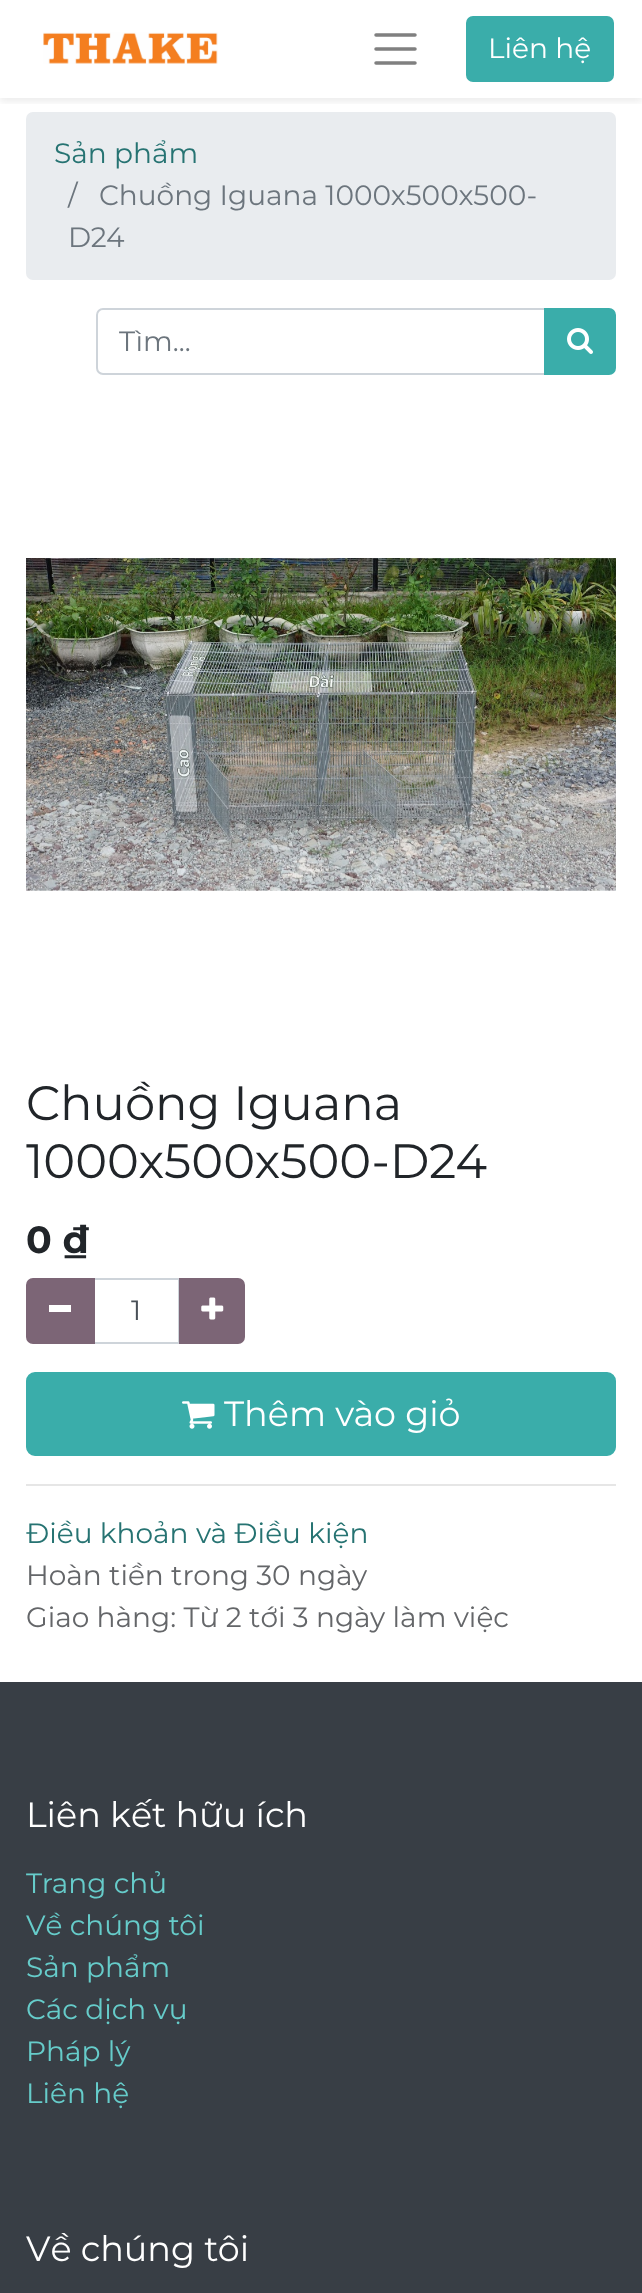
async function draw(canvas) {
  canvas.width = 642
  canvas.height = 2293
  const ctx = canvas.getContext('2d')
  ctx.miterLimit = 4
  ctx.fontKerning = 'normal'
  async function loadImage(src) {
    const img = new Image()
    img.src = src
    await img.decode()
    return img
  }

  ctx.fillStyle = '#fff'
  ctx.fillRect(0, 0, 642, 2293)
  ctx.fillStyle = '#e9ecef'
  ctx.beginPath()
  ctx.roundRect(26, 112, 590, 168, 7)
  ctx.fill()
  ctx.save()
  ctx.beginPath()
  ctx.rect(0, 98, 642, 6)
  ctx.clip()
  ctx.fillStyle = '#00000012'
  ctx.filter = 'blur(3.5px)'
  ctx.beginPath()
  ctx.rect(0, 4, 642, 98)
  ctx.fill()
  ctx.filter = 'none'
  ctx.restore()
  ctx.drawImage(await loadImage('image0.png'), 43, 32, 175, 32)
  ctx.beginPath()
  ctx.moveTo(376, 35)
  ctx.lineTo(415, 35)
  ctx.moveTo(376, 49)
  ctx.lineTo(415, 49)
  ctx.moveTo(376, 63)
  ctx.lineTo(415, 63)
  ctx.strokeStyle = '#808080'
  ctx.lineWidth = 3.5
  ctx.lineCap = 'round'
  ctx.stroke()
  ctx.fillStyle = '#3aadaa'
  ctx.beginPath()
  ctx.roundRect(467, 17, 146, 64, 6)
  ctx.fill()
  ctx.strokeStyle = '#3aadaa'
  ctx.lineWidth = 2
  ctx.stroke()
  ctx.font = '28px Montserrat'
  ctx.fillStyle = '#fff'
  ctx.fillText('Liên hệ', 488, 58)
  ctx.fillStyle = '#267372'
  ctx.fillText('Sản phẩm', 54, 163)
  ctx.fillStyle = '#6c757d'
  ctx.fillText('/', 68, 205)
  ctx.fillText('Chuồng Iguana 1000x500x500-', 99, 205)
  ctx.fillText('D24', 68, 247)
  ctx.beginPath()
  ctx.roundRect(97, 309, 448, 65, [6, 0, 0, 6])
  ctx.strokeStyle = '#ced4da'
  ctx.stroke()
  ctx.fillText('Tìm...', 119, 351)
  ctx.fillStyle = '#3aadaa'
  ctx.beginPath()
  ctx.roundRect(545, 309, 70, 65, [0, 6, 6, 0])
  ctx.fill()
  ctx.strokeStyle = '#3aadaa'
  ctx.stroke()
  ctx.drawImage(await loadImage('image1.png'), 567, 328, 26, 26)
  ctx.drawImage(await loadImage('image2.png'), 26, 558, 590, 333)
  ctx.font = '48.1px Montserrat'
  ctx.fillStyle = '#212529'
  ctx.fillText('Chuồng Iguana', 26, 1120)
  ctx.fillText('1000x500x500-D24', 26, 1178)
  ctx.font = 'bold 38px Montserrat'
  ctx.fillText('0 ₫', 26, 1253)
  ctx.strokeStyle = '#ced4da'
  ctx.strokeRect(94, 1279, 85, 64)
  ctx.fillStyle = '#7c6576'
  ctx.beginPath()
  ctx.roundRect(27, 1279, 67, 64, [6, 0, 0, 6])
  ctx.fill()
  ctx.strokeStyle = '#7c6576'
  ctx.stroke()
  ctx.fillStyle = '#fff'
  ctx.fillRect(49, 1305, 22, 7)
  ctx.font = '28px Montserrat'
  ctx.fillStyle = '#495057'
  ctx.fillText('1', 131, 1320)
  ctx.fillStyle = '#7c6576'
  ctx.beginPath()
  ctx.roundRect(180, 1279, 64, 64, [0, 6, 6, 0])
  ctx.fill()
  ctx.stroke()
  ctx.drawImage(await loadImage('image3.png'), 201, 1297, 23, 23)
  ctx.fillStyle = '#3aadaa'
  ctx.beginPath()
  ctx.roundRect(27, 1373, 588, 82, 8)
  ctx.fill()
  ctx.strokeStyle = '#3aadaa'
  ctx.stroke()
  ctx.drawImage(await loadImage('image4.png'), 182, 1401, 33, 28)
  ctx.font = '35px Montserrat'
  ctx.fillStyle = '#fff'
  ctx.fillText('Thêm vào giỏ', 224, 1426)
  ctx.fillStyle = '#e6e6e6'
  ctx.fillRect(26, 1484, 590, 2)
  ctx.font = '28px Montserrat'
  ctx.fillStyle = '#267372'
  ctx.fillText('Điều khoản và Điều kiện', 26, 1543)
  ctx.fillStyle = '#646669'
  ctx.fillText('Hoàn tiền trong 30 ngày', 26, 1585)
  ctx.fillText('Giao hàng: Từ 2 tới 3 ngày làm việc', 26, 1627)
  ctx.fillStyle = '#383e45'
  ctx.fillRect(0, 1682, 642, 611)
  ctx.font = '35px Montserrat'
  ctx.fillStyle = '#fff'
  ctx.fillText('Liên kết hữu ích', 26, 1827)
  ctx.font = '28px Montserrat'
  ctx.fillStyle = '#66ccca'
  ctx.fillText('Trang chủ', 26, 1893)
  ctx.fillText('Về chúng tôi', 26, 1935)
  ctx.fillText('Sản phẩm', 26, 1977)
  ctx.fillText('Các dịch vụ', 26, 2019)
  ctx.fillText('Pháp lý', 26, 2061)
  ctx.fillText('Liên hệ', 26, 2103)
  ctx.font = '35px Montserrat'
  ctx.fillStyle = '#fff'
  ctx.fillText('Về chúng tôi', 26, 2261)
}

draw(document.querySelector('canvas'))
